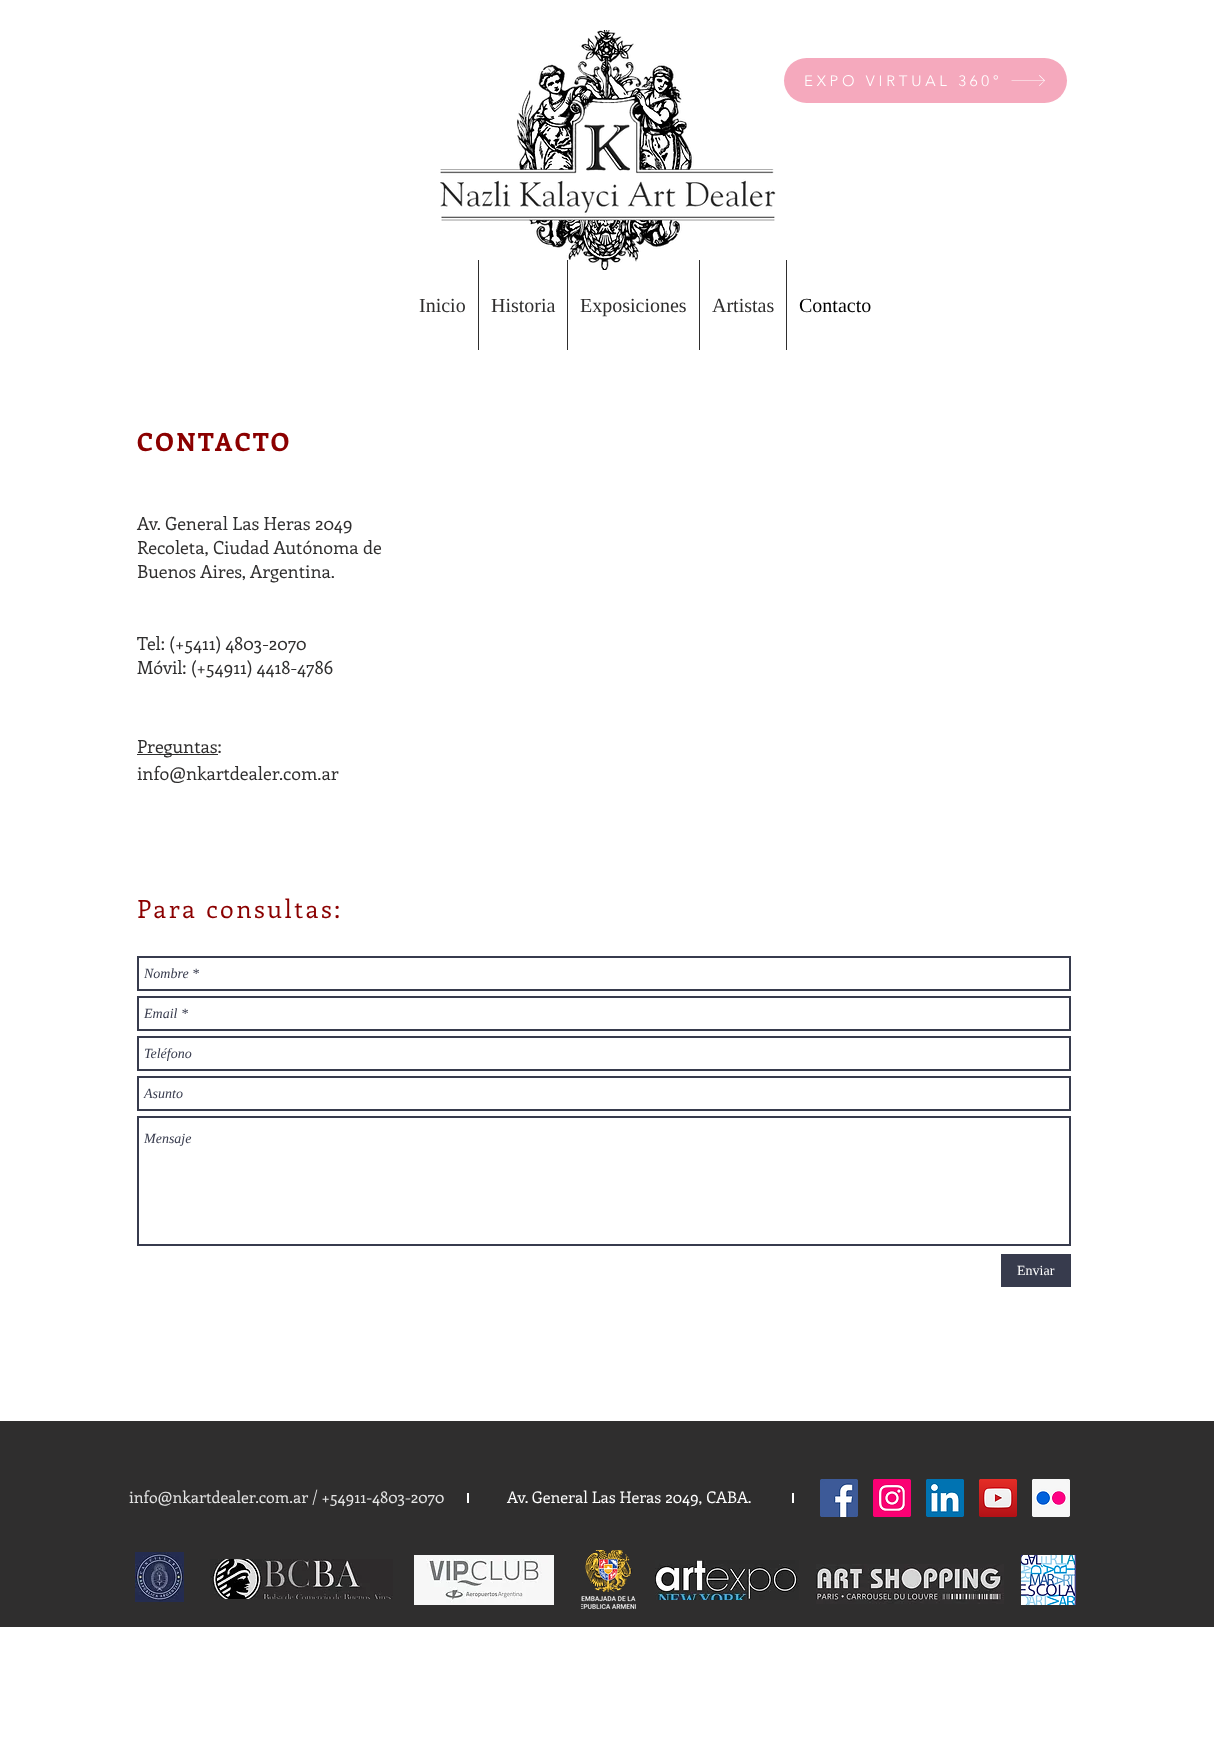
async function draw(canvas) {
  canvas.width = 1214
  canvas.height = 1737
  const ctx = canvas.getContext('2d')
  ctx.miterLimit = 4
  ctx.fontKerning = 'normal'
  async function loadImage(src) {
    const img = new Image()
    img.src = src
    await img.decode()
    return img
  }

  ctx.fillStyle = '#fff'
  ctx.fillRect(0, 0, 1214, 1737)
  ctx.drawImage(await loadImage('image0.png'), 440, 30, 336, 240)
  ctx.fillStyle = '#f5a9bd'
  ctx.beginPath()
  ctx.roundRect(784, 58, 283, 45, 22.5)
  ctx.fill()
  ctx.letterSpacing = '3.75px'
  ctx.font = '300 15px "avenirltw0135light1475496"'
  ctx.fillStyle = '#fff'
  ctx.fillText('EXPO VIRTUAL 360°', 804, 86)
  ctx.beginPath()
  ctx.moveTo(1039.5, 75)
  ctx.lineTo(1039, 75.5)
  ctx.lineTo(1044, 80.5)
  ctx.lineTo(1011.5, 80.5)
  ctx.lineTo(1011.5, 81)
  ctx.lineTo(1044, 81)
  ctx.lineTo(1039, 85.5)
  ctx.lineTo(1039.5, 86)
  ctx.lineTo(1045, 80.5)
  ctx.closePath()
  ctx.fill()
  ctx.letterSpacing = '0px'
  ctx.font = '20px Liberation Serif'
  ctx.fillStyle = '#2f2e2e'
  ctx.fillText('Inicio', 419, 312)
  ctx.fillRect(478, 260, 1, 90)
  ctx.fillText('Historia', 491, 312)
  ctx.fillRect(567, 260, 1, 90)
  ctx.fillText('Exposiciones', 580, 312)
  ctx.fillRect(699, 260, 1, 90)
  ctx.fillText('Artistas', 712, 312)
  ctx.fillRect(786, 260, 1, 90)
  ctx.fillStyle = '#000'
  ctx.fillText('Contacto', 799, 312)
  ctx.letterSpacing = '2.5px'
  ctx.font = 'bold 25px Enriqueta'
  ctx.fillStyle = '#8b0000'
  ctx.fillText('CONTACTO', 137, 451)
  ctx.letterSpacing = '0px'
  ctx.font = '18px Enriqueta'
  ctx.fillStyle = '#2f2e2e'
  ctx.fillText('Av. General Las Heras 2049', 137, 530)
  ctx.fillText('Recoleta, Ciudad Autónoma de', 137, 554)
  ctx.fillText('Buenos Aires, Argentina.', 137, 578)
  ctx.fillText('Tel: (+5411) 4803-2070', 137, 650)
  ctx.fillText('Móvil: (+54911) 4418-4786', 137, 674)
  ctx.fillRect(137, 754, 81, 1)
  ctx.fillText('Preguntas:', 137, 753)
  ctx.fillText('info@nkartdealer.com.ar', 137, 780)
  ctx.letterSpacing = '2.5px'
  ctx.font = '25px Enriqueta'
  ctx.fillStyle = '#8b0000'
  ctx.fillText('Para consultas:', 137, 918)
  ctx.strokeStyle = '#373b4d'
  ctx.lineWidth = 2
  ctx.strokeRect(138, 957, 932, 33)
  ctx.letterSpacing = '0px'
  ctx.font = 'italic 14px Liberation Serif'
  ctx.fillStyle = '#373b4d'
  ctx.fillText('Nombre *', 144, 978)
  ctx.strokeRect(138, 997, 932, 33)
  ctx.fillText('Email *', 144, 1018)
  ctx.strokeRect(138, 1037, 932, 33)
  ctx.fillText('Teléfono', 144, 1058)
  ctx.strokeRect(138, 1077, 932, 33)
  ctx.fillText('Asunto', 144, 1098)
  ctx.strokeRect(138, 1117, 932, 128)
  ctx.fillText('Mensaje', 144, 1143)
  ctx.fillRect(1001, 1254, 70, 33)
  ctx.font = '14px Liberation Serif'
  ctx.fillStyle = '#fff'
  ctx.fillText('Enviar', 1017, 1275)
  ctx.fillStyle = '#2f2e2e'
  ctx.fillRect(0, 1421, 1214, 206)
  ctx.font = '16px Enriqueta'
  ctx.fillStyle = '#e6e6e6'
  ctx.fillText('info@nkartdealer.com.ar / +54911-4803-2070', 129, 1503)
  ctx.fillStyle = '#fff'
  ctx.fillRect(467, 1493, 2, 10)
  ctx.fillText('Av. General Las Heras 2049, CABA.', 507, 1503)
  ctx.fillRect(792, 1493, 2, 10)
  ctx.drawImage(await loadImage('image1.png'), 820, 1479, 38, 38)
  ctx.drawImage(await loadImage('image2.png'), 873, 1479, 38, 38)
  ctx.drawImage(await loadImage('image3.png'), 926, 1479, 38, 38)
  ctx.drawImage(await loadImage('image4.png'), 979, 1479, 38, 38)
  ctx.drawImage(await loadImage('image5.png'), 1032, 1479, 38, 38)
  ctx.drawImage(await loadImage('image6.png'), 135, 1552, 49, 50)
  ctx.drawImage(await loadImage('image7.png'), 210, 1559, 183, 40)
  ctx.drawImage(await loadImage('image8.png'), 414, 1555, 140, 50)
  ctx.drawImage(await loadImage('image9.png'), 581, 1550, 55, 59)
  ctx.drawImage(await loadImage('image10.png'), 655, 1560, 144, 40)
  ctx.drawImage(await loadImage('image11.png'), 816, 1564, 188, 40)
  ctx.drawImage(await loadImage('image12.png'), 1021, 1555, 55, 50)
}

draw(document.querySelector('canvas'))
